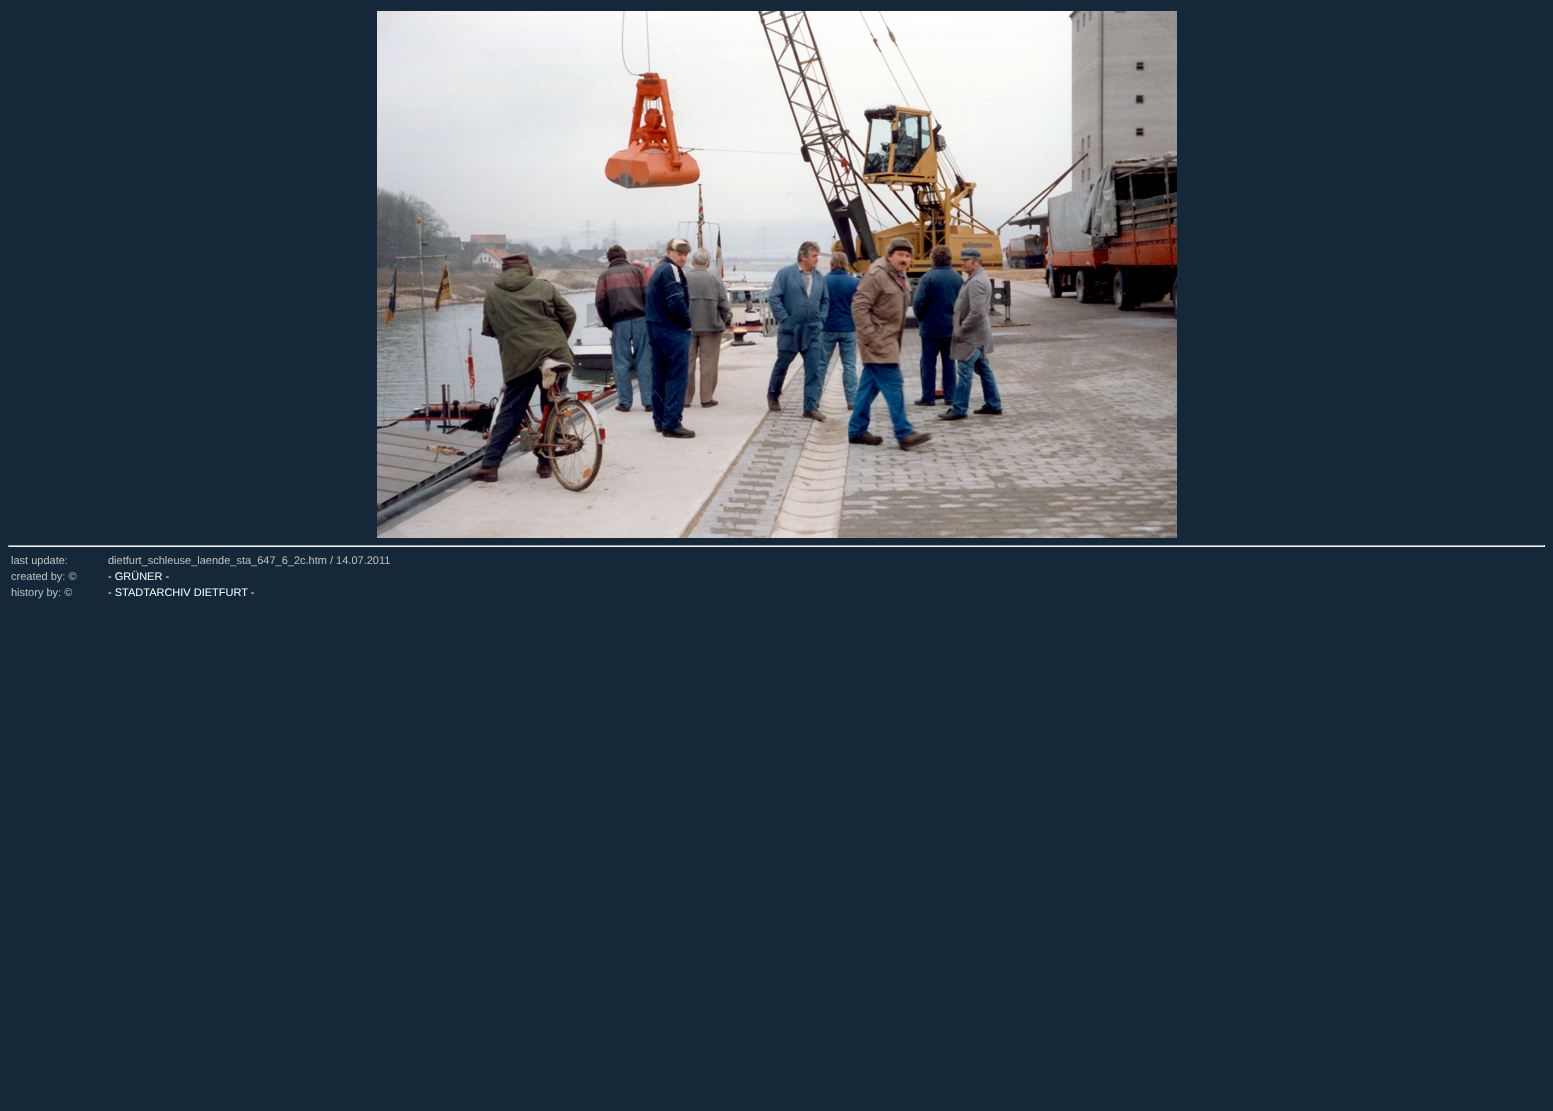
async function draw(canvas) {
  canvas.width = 1553
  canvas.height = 1111
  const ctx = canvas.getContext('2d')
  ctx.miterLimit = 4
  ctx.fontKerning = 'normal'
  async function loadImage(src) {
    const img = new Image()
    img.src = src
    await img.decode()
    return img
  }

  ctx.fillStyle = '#142839'
  ctx.fillRect(0, 0, 1553, 1111)
  ctx.drawImage(await loadImage('image0.png'), 377, 11, 800, 527)
  ctx.fillStyle = '#9f9f9f'
  ctx.fillRect(8, 545, 1537, 1)
  ctx.fillStyle = '#eee'
  ctx.fillRect(1544, 545, 1, 2)
  ctx.fillRect(8, 546, 1537, 1)
  ctx.fillStyle = '#9f9f9f'
  ctx.fillRect(8, 545, 1, 2)
  ctx.font = '11px Liberation Sans'
  ctx.fillStyle = '#c0c0c0'
  ctx.fillText('last update:', 11, 564)
  ctx.fillText('dietfurt_schleuse_laende_sta_647_6_2c.htm / 14.07.2011', 108, 564)
  ctx.fillText('created by: ©', 11, 580)
  ctx.fillStyle = '#fff'
  ctx.fillText('- GRÜNER -', 108, 580)
  ctx.fillStyle = '#c0c0c0'
  ctx.fillText('history by: ©', 11, 596)
  ctx.fillStyle = '#fff'
  ctx.fillText('- STADTARCHIV DIETFURT -', 108, 596)
}

draw(document.querySelector('canvas'))
